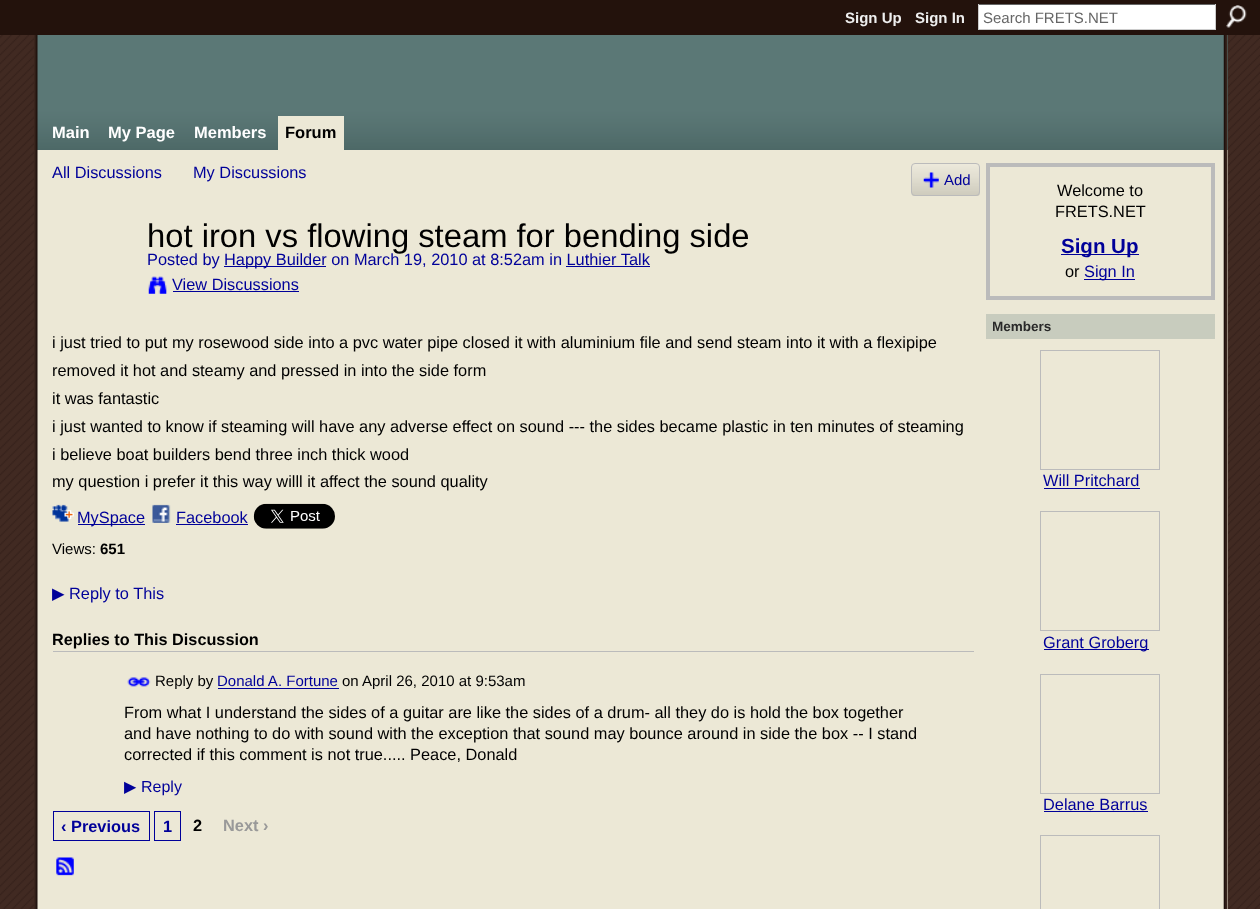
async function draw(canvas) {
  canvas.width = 1260
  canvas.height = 909
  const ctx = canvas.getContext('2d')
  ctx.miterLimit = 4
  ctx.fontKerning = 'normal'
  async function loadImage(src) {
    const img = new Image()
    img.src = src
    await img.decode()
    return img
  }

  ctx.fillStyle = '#fff'
  ctx.fillRect(0, 0, 1260, 909)
  ctx.drawImage(await loadImage('image0.png'), 0, 35, 1260, 874)
  ctx.fillStyle = '#23120c'
  ctx.fillRect(0, 0, 1260, 35)
  ctx.font = 'bold 15px Liberation Sans'
  ctx.fillStyle = '#eee'
  ctx.fillText('Sign Up', 845, 23)
  ctx.fillText('Sign In', 915, 23)
  ctx.fillStyle = '#fff'
  ctx.fillRect(979, 5, 236, 24)
  ctx.fillStyle = '#666'
  ctx.fillRect(978, 4, 238, 1)
  ctx.fillStyle = '#ccc'
  ctx.fillRect(1215, 4, 1, 26)
  ctx.fillRect(978, 29, 238, 1)
  ctx.fillRect(978, 4, 1, 26)
  ctx.font = '15px Liberation Sans'
  ctx.fillStyle = '#666'
  ctx.fillText('Search FRETS.NET', 983, 23)
  ctx.drawImage(await loadImage('image1.png'), 1226, 5, 21, 23)
  ctx.fillStyle = '#5b7876'
  ctx.fillRect(1227, 35, 1, 115)
  ctx.drawImage(await loadImage('image2.png'), 34, 35, 1194, 115)
  ctx.font = 'bold 16.5px Liberation Sans'
  ctx.fillStyle = '#fff'
  ctx.fillText('Main', 52, 138)
  ctx.fillText('My Page', 108, 138)
  ctx.fillText('Members', 194, 138)
  ctx.fillStyle = '#ece8d6'
  ctx.fillRect(278, 116, 66, 34)
  ctx.fillStyle = '#000'
  ctx.fillText('Forum', 285, 138)
  ctx.fillStyle = '#ece8d6'
  ctx.fillRect(1227, 150, 1, 759)
  ctx.drawImage(await loadImage('image3.png'), 34, 150, 1194, 759)
  ctx.font = '16.35px Liberation Sans'
  ctx.fillStyle = '#009'
  ctx.fillText('All Discussions', 52, 178)
  ctx.fillText('My Discussions', 193, 178)
  ctx.drawImage(await loadImage('image4.png'), 911, 164, 69, 32)
  ctx.beginPath()
  ctx.roundRect(911.5, 163.5, 68, 32, 3.5)
  ctx.strokeStyle = '#bbb'
  ctx.stroke()
  ctx.drawImage(await loadImage('image5.png'), 923, 172, 16, 16)
  ctx.font = '15px Liberation Sans'
  ctx.fillText('Add', 944, 185)
  ctx.font = '32.75px Liberation Sans'
  ctx.fillStyle = '#000'
  ctx.fillText('hot iron vs flowing steam for bending side', 147, 247)
  ctx.font = '16.35px Liberation Sans'
  ctx.fillStyle = '#009'
  ctx.fillText('Posted by', 147, 265)
  ctx.fillRect(224, 266, 102, 1)
  ctx.fillText('Happy Builder on March 19, 2010 at 8:52am in Luthier Talk', 224, 265)
  ctx.fillRect(566, 266, 84, 1)
  ctx.drawImage(await loadImage('image6.png'), 148, 276, 19, 18)
  ctx.fillText('View Discussions', 172, 290)
  ctx.fillRect(173, 291, 126, 1)
  ctx.fillStyle = '#000'
  ctx.fillText('i just tried to put my rosewood side into a pvc water pipe closed it with aluminium file and send steam into it with a flexipipe', 52, 348)
  ctx.fillText('removed it hot and steamy and pressed in into the side form', 52, 376)
  ctx.fillText('it was fantastic', 52, 404)
  ctx.fillText('i just wanted to know if steaming will have any adverse effect on sound --- the sides became plastic in ten minutes of steaming', 52, 432)
  ctx.fillText('i believe boat builders bend three inch thick wood', 52, 460)
  ctx.fillText('my question i prefer it this way willl it affect the sound quality', 52, 487)
  ctx.drawImage(await loadImage('image7.png'), 52, 504, 22, 18)
  ctx.fillStyle = '#009'
  ctx.fillRect(78, 524, 67, 1)
  ctx.fillText('MySpace', 77, 523)
  ctx.drawImage(await loadImage('image8.png'), 152, 504, 19, 19)
  ctx.fillText('Facebook', 176, 523)
  ctx.fillRect(176, 524, 72, 1)
  ctx.drawImage(await loadImage('image9.png'), 253, 503, 82, 26)
  ctx.font = '15px Liberation Sans'
  ctx.fillStyle = '#000'
  ctx.fillText('Views:', 52, 554)
  ctx.font = 'bold 15px Liberation Sans'
  ctx.fillText('651', 100, 554)
  ctx.font = '16.35px DejaVu Sans'
  ctx.fillStyle = '#009'
  ctx.fillText('▶', 52, 599)
  ctx.font = '16.35px Liberation Sans'
  ctx.fillText('Reply to This', 69, 599)
  ctx.font = 'bold 16.25px Liberation Sans'
  ctx.fillStyle = '#000'
  ctx.fillText('Replies to This Discussion', 52, 645)
  ctx.fillStyle = '#bbb'
  ctx.fillRect(53, 651, 921, 1)
  ctx.drawImage(await loadImage('image10.png'), 127, 677, 24, 10)
  ctx.font = '15px Liberation Sans'
  ctx.fillStyle = '#000'
  ctx.fillText('Reply by', 155, 686)
  ctx.fillStyle = '#009'
  ctx.fillText('Donald A. Fortune', 217, 686)
  ctx.fillRect(218, 688, 121, 1)
  ctx.fillStyle = '#000'
  ctx.fillText('on', 342, 686)
  ctx.fillText('April 26, 2010 at 9:53am', 362, 686)
  ctx.font = '16.35px Liberation Sans'
  ctx.fillText('From what I understand the sides of a guitar are like the sides of a drum- all they do is hold the box together', 124, 718)
  ctx.fillText('and have nothing to do with sound with the exception that sound may bounce around in side the box -- I stand', 124, 739)
  ctx.fillText('corrected if this comment is not true..... Peace, Donald', 124, 760)
  ctx.font = '16px DejaVu Sans'
  ctx.fillStyle = '#009'
  ctx.fillText('▶', 124, 792)
  ctx.font = '16px Liberation Sans'
  ctx.fillText('Reply', 141, 792)
  ctx.strokeStyle = '#009'
  ctx.strokeRect(53.5, 811.5, 96, 29)
  ctx.font = 'bold 16.35px Liberation Sans'
  ctx.fillText('‹ Previous', 61, 832)
  ctx.strokeRect(154.5, 811.5, 26, 29)
  ctx.fillText('1', 163, 832)
  ctx.fillStyle = '#000'
  ctx.fillText('2', 193, 831)
  ctx.fillStyle = '#999'
  ctx.fillText('Next ›', 223, 831)
  ctx.drawImage(await loadImage('image11.png'), 56, 857, 18, 19)
  ctx.strokeStyle = '#bbb'
  ctx.lineWidth = 4
  ctx.strokeRect(988, 165, 225, 133)
  ctx.font = '16.35px Liberation Sans'
  ctx.fillStyle = '#000'
  ctx.fillText('Welcome to', 1057, 196)
  ctx.fillText('FRETS.NET', 1055, 217)
  ctx.fillStyle = '#009'
  ctx.fillRect(1061, 254, 78, 1)
  ctx.font = 'bold 20.5px Liberation Sans'
  ctx.fillText('Sign Up', 1061, 253)
  ctx.font = '16.35px Liberation Sans'
  ctx.fillStyle = '#000'
  ctx.fillText('or', 1065, 277)
  ctx.fillStyle = '#009'
  ctx.fillRect(1084, 279, 51, 1)
  ctx.fillText('Sign In', 1084, 277)
  ctx.fillStyle = '#c8ccbe'
  ctx.fillRect(986, 314, 229, 25)
  ctx.save()
  ctx.beginPath()
  ctx.rect(993, 318, 58, 17)
  ctx.clip()
  ctx.font = 'bold 13.5px Liberation Sans'
  ctx.fillStyle = '#292929'
  ctx.fillText('Members', 992, 331)
  ctx.restore()
  ctx.lineWidth = 1
  ctx.strokeRect(1040.5, 350.5, 119, 119)
  ctx.fillStyle = '#009'
  ctx.fillText('Will Pritchard', 1043, 486)
  ctx.fillRect(1044, 488, 96, 1)
  ctx.strokeRect(1040.5, 511.5, 119, 119)
  ctx.fillRect(1044, 649, 105, 1)
  ctx.fillText('Grant Groberg', 1043, 648)
  ctx.strokeRect(1040.5, 674.5, 119, 119)
  ctx.fillText('Delane Barrus', 1043, 810)
  ctx.fillRect(1044, 811, 104, 1)
  ctx.strokeRect(1040.5, 835.5, 119, 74)
}

draw(document.querySelector('canvas'))
